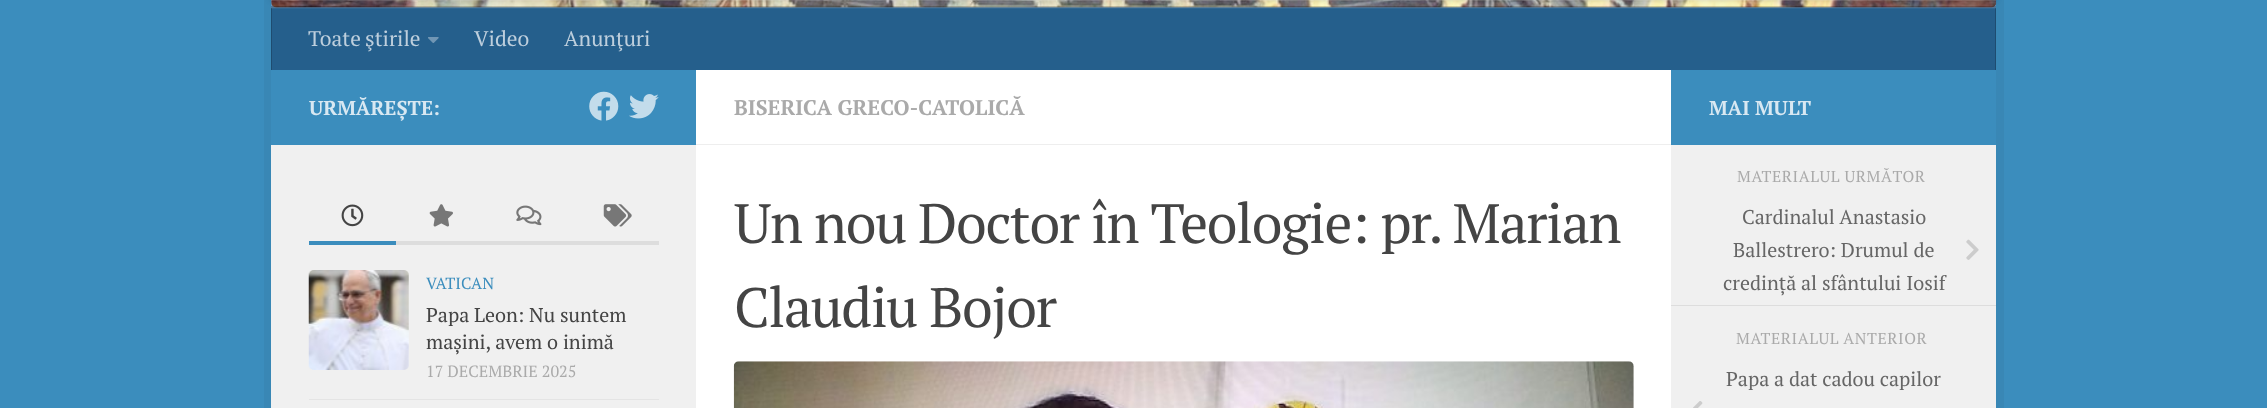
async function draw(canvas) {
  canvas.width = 2267
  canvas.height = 408
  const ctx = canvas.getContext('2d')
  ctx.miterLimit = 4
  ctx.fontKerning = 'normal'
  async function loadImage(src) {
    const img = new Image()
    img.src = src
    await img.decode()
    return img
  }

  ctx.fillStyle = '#3b8dbd'
  ctx.fillRect(0, 0, 2267, 408)
  ctx.fillStyle = '#3987b5'
  ctx.beginPath()
  ctx.moveTo(264, -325)
  ctx.lineTo(264, 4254)
  ctx.lineTo(1989, 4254)
  ctx.lineTo(271, 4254)
  ctx.lineTo(271, -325)
  ctx.closePath()
  ctx.fill()
  ctx.beginPath()
  ctx.moveTo(279, 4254)
  ctx.lineTo(2004, 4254)
  ctx.lineTo(2004, -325)
  ctx.lineTo(1996, -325)
  ctx.lineTo(1996, 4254)
  ctx.closePath()
  ctx.fill()
  ctx.fillStyle = '#6394bf'
  ctx.fillRect(271, 0, 1725, 8)
  ctx.drawImage(await loadImage('image0.png'), 271, 0, 1726, 8)
  ctx.fillStyle = '#ffffff26'
  ctx.beginPath()
  ctx.moveTo(271, -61)
  ctx.lineTo(271, 1)
  ctx.lineTo(1996, 1)
  ctx.lineTo(1996, 0)
  ctx.lineTo(271, 0)
  ctx.closePath()
  ctx.fill()
  ctx.fillStyle = '#00000033'
  ctx.beginPath()
  ctx.moveTo(271, 6)
  ctx.lineTo(271, 69)
  ctx.lineTo(271, 8)
  ctx.lineTo(1996, 8)
  ctx.lineTo(1996, 6)
  ctx.closePath()
  ctx.fill()
  ctx.fillStyle = '#255f8c'
  ctx.fillRect(272, 9, 1723, 61)
  ctx.fillStyle = '#306792'
  ctx.fillRect(271, 8, 1725, 1)
  ctx.fillStyle = '#1e4c70'
  ctx.fillRect(1995, 8, 1, 62)
  ctx.fillStyle = '#295577'
  ctx.fillRect(1995, 8, 1, 1)
  ctx.fillStyle = '#1e4c70'
  ctx.fillRect(271, 8, 1, 62)
  ctx.fillStyle = '#295577'
  ctx.fillRect(271, 8, 1, 1)
  ctx.fillStyle = '#00000033'
  ctx.filter = 'blur(3px)'
  ctx.beginPath()
  ctx.rect(271, -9, 1725, 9)
  ctx.fill()
  ctx.filter = 'none'
  ctx.wordSpacing = '-1px'
  ctx.font = '21.25px PT Serif'
  ctx.fillStyle = '#becfdd'
  ctx.fillText('Toate ştirile', 308, 46)
  ctx.drawImage(await loadImage('image1.png'), 428, 37, 11, 6)
  ctx.wordSpacing = '0px'
  ctx.fillText('Video', 474, 46)
  ctx.fillText('Anunţuri', 564, 46)
  ctx.fillStyle = '#fff'
  ctx.fillRect(696, 70, 975, 338)
  ctx.font = 'bold 20px PT Serif'
  ctx.fillStyle = '#d8e8f2'
  ctx.fillText('URMĂREȘTE:', 309, 115)
  ctx.drawImage(await loadImage('image2.png'), 589, 91, 30, 30)
  ctx.drawImage(await loadImage('image3.png'), 629, 94, 30, 25)
  ctx.fillStyle = '#f0f0f0'
  ctx.fillRect(271, 145, 425, 263)
  ctx.fillStyle = '#ddd'
  ctx.fillRect(396, 241, 263, 4)
  ctx.fillStyle = '#3b8dbd'
  ctx.fillRect(309, 241, 87, 4)
  ctx.drawImage(await loadImage('image4.png'), 341, 204, 23, 23)
  ctx.drawImage(await loadImage('image5.png'), 429, 204, 24, 23)
  ctx.drawImage(await loadImage('image6.png'), 516, 205, 26, 21)
  ctx.drawImage(await loadImage('image7.png'), 603, 204, 29, 23)
  ctx.fillStyle = '#e4e4e4'
  ctx.fillRect(309, 399, 350, 1)
  ctx.drawImage(await loadImage('image8.png'), 308, 270, 101, 100)
  ctx.font = '16.25px PT Serif'
  ctx.fillStyle = '#3b8dbd'
  ctx.fillText('VATICAN', 426, 289)
  ctx.font = '19.9px PT Serif'
  ctx.fillStyle = '#444'
  ctx.fillText('Papa Leon: Nu suntem', 426, 322)
  ctx.fillText('mașini, avem o inimă', 426, 349)
  ctx.font = '16.25px PT Serif'
  ctx.fillStyle = '#aaa'
  ctx.fillText('17 DECEMBRIE 2025', 426, 377)
  ctx.fillStyle = '#eee'
  ctx.fillRect(696, 144, 975, 1)
  ctx.font = 'bold 21.25px PT Serif'
  ctx.fillStyle = '#aaa'
  ctx.fillText('BISERICA GRECO-CATOLICĂ', 734, 115)
  ctx.letterSpacing = '-1.25px'
  ctx.font = '55.5px PT Serif'
  ctx.fillStyle = '#444'
  ctx.fillText('Un nou Doctor în Teologie: pr. Marian', 734, 243)
  ctx.fillText('Claudiu Bojor', 734, 327)
  ctx.drawImage(await loadImage('image9.png'), 733, 361, 901, 47)
  ctx.letterSpacing = '0px'
  ctx.font = 'bold 20px PT Serif'
  ctx.fillStyle = '#d8e8f2'
  ctx.fillText('MAI MULT', 1709, 115)
  ctx.fillStyle = '#f0f0f0'
  ctx.fillRect(1671, 145, 325, 263)
  ctx.letterSpacing = '0.6px'
  ctx.font = '15.9px PT Serif'
  ctx.fillStyle = '#aaa'
  ctx.fillText('MATERIALUL URMĂTOR', 1737, 182)
  ctx.fillStyle = '#ddd'
  ctx.fillRect(1671, 305, 325, 1)
  ctx.letterSpacing = '0px'
  ctx.font = '19.9px PT Serif'
  ctx.fillStyle = '#666'
  ctx.fillText('Cardinalul Anastasio', 1742, 224)
  ctx.fillText('Ballestrero: Drumul de', 1733, 257)
  ctx.drawImage(await loadImage('image10.png'), 1966, 239, 13, 21)
  ctx.fillText('credință al sfântului Iosif', 1723, 290)
  ctx.letterSpacing = '0.6px'
  ctx.font = '15.9px PT Serif'
  ctx.fillStyle = '#aaa'
  ctx.fillText('MATERIALUL ANTERIOR', 1736, 344)
  ctx.letterSpacing = '0px'
  ctx.font = '19.9px PT Serif'
  ctx.fillStyle = '#666'
  ctx.fillText('Papa a dat cadou capilor', 1726, 386)
  ctx.drawImage(await loadImage('image11.png'), 1693, 401, 10, 7)
}

draw(document.querySelector('canvas'))
